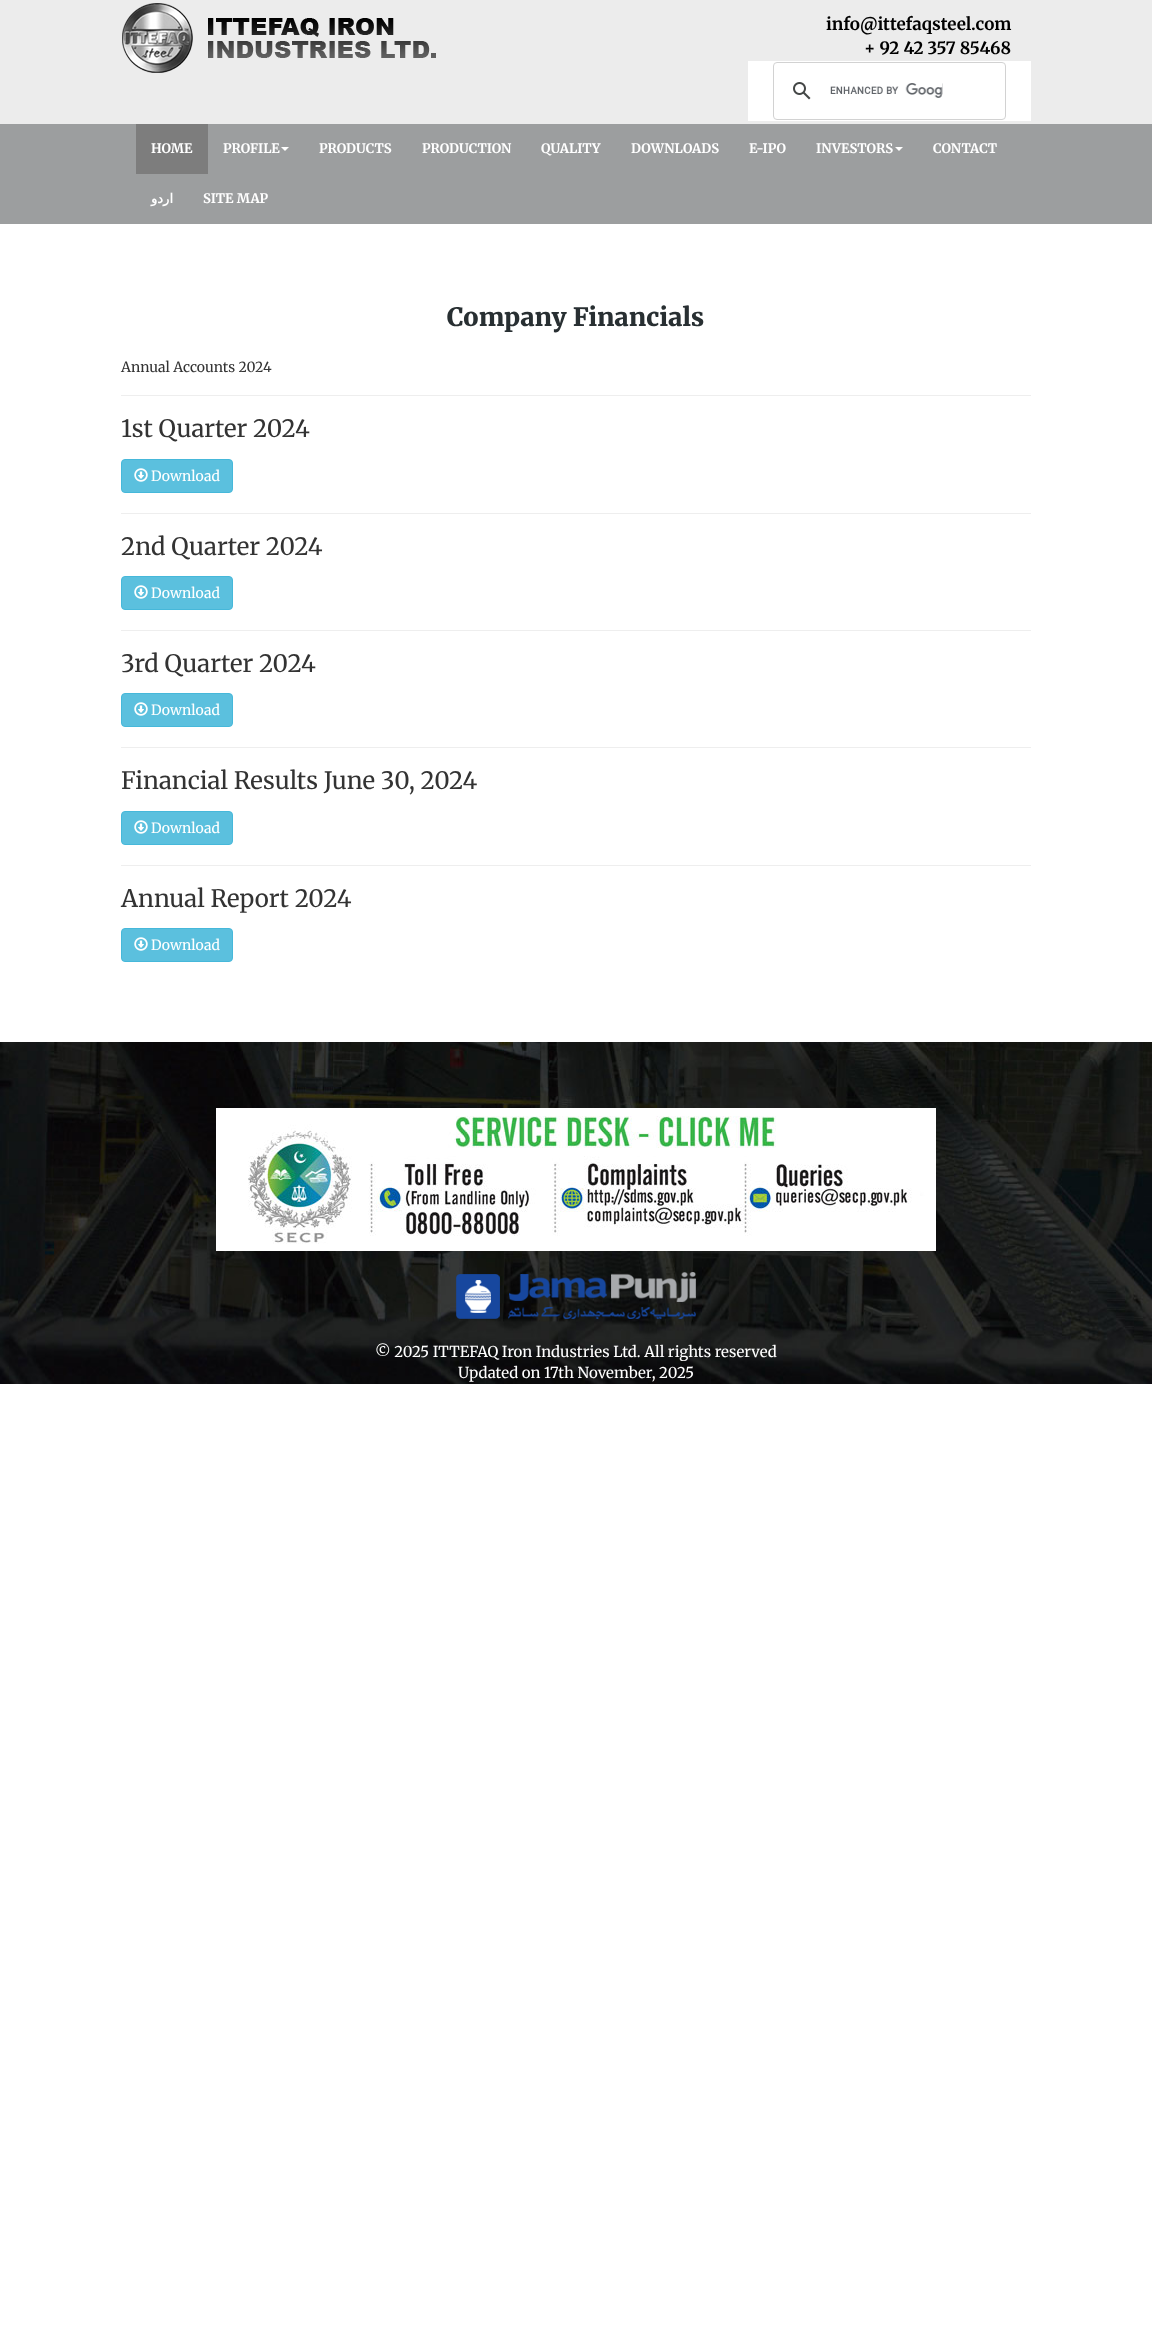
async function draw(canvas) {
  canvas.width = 1152
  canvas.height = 2328
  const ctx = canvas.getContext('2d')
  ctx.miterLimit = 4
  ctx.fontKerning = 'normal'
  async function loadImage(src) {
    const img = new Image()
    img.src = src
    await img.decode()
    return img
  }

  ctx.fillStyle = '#fff'
  ctx.fillRect(0, 0, 1152, 2328)
  ctx.fillStyle = '#ececec'
  ctx.fillRect(0, 0, 1152, 124)
  ctx.drawImage(await loadImage('image0.png'), 122, 3, 314, 70)
  ctx.font = 'bold 17px Merriweather'
  ctx.fillStyle = '#000'
  ctx.fillText('info@ittefaqsteel.com', 826, 30)
  ctx.fillText('+ 92 42 357 85468', 864, 54)
  ctx.fillStyle = '#fff'
  ctx.fillRect(748, 61, 283, 60)
  ctx.beginPath()
  ctx.roundRect(773.5, 62.5, 232, 57, 3.5)
  ctx.strokeStyle = '#d2d2d2'
  ctx.stroke()
  ctx.drawImage(await loadImage('image1.png'), 793, 82, 18, 18)
  ctx.drawImage(await loadImage('image2.png'), 830, 83, 113, 15)
  ctx.fillStyle = '#9c9e9f'
  ctx.fillRect(0, 124, 1152, 100)
  ctx.fillStyle = '#7d7d7d'
  ctx.fillRect(136, 124, 72, 50)
  ctx.font = 'bold 13px Merriweather'
  ctx.fillStyle = '#fff'
  ctx.fillText('HOME', 151, 153)
  ctx.fillText('PROFILE', 223, 153)
  ctx.beginPath()
  ctx.moveTo(281, 147)
  ctx.lineTo(289, 147)
  ctx.lineTo(285, 151)
  ctx.closePath()
  ctx.fill()
  ctx.fillText('PRODUCTS', 319, 153)
  ctx.fillText('PRODUCTION', 422, 153)
  ctx.fillText('QUALITY', 541, 153)
  ctx.fillText('DOWNLOADS', 631, 153)
  ctx.fillText('E-IPO', 749, 153)
  ctx.fillText('INVESTORS', 816, 153)
  ctx.beginPath()
  ctx.moveTo(895, 147)
  ctx.lineTo(903, 147)
  ctx.lineTo(899, 151)
  ctx.closePath()
  ctx.fill()
  ctx.fillText('CONTACT', 933, 153)
  ctx.direction = 'rtl'
  ctx.font = 'bold 13px DejaVu Sans'
  ctx.fillText('اردو', 173, 203)
  ctx.direction = 'ltr'
  ctx.font = 'bold 13px Merriweather'
  ctx.fillText('SITE MAP', 203, 203)
  ctx.font = '900 25.25px Merriweather'
  ctx.fillStyle = '#282f32'
  ctx.fillText('Company Financials', 447, 326)
  ctx.font = '14px Merriweather'
  ctx.fillStyle = '#333'
  ctx.fillText('Annual Accounts 2024', 121, 372)
  ctx.fillStyle = '#eee'
  ctx.fillRect(121, 395, 910, 1)
  ctx.font = '24px Merriweather'
  ctx.fillStyle = '#333'
  ctx.fillText('1st Quarter 2024', 121, 437)
  ctx.fillStyle = '#5bc0de'
  ctx.beginPath()
  ctx.roundRect(121.5, 459.5, 111, 33, 3.5)
  ctx.fill()
  ctx.strokeStyle = '#46b8da'
  ctx.stroke()
  ctx.drawImage(await loadImage('image3.png'), 134, 468, 14, 14)
  ctx.font = '14px Merriweather'
  ctx.fillStyle = '#fff'
  ctx.fillText('Download', 151, 481)
  ctx.fillStyle = '#eee'
  ctx.fillRect(121, 513, 910, 1)
  ctx.font = '24px Merriweather'
  ctx.fillStyle = '#333'
  ctx.fillText('2nd Quarter 2024', 121, 555)
  ctx.fillStyle = '#5bc0de'
  ctx.beginPath()
  ctx.roundRect(121.5, 576.5, 111, 33, 3.5)
  ctx.fill()
  ctx.stroke()
  ctx.drawImage(await loadImage('image3.png'), 134, 585, 14, 14)
  ctx.font = '14px Merriweather'
  ctx.fillStyle = '#fff'
  ctx.fillText('Download', 151, 598)
  ctx.fillStyle = '#eee'
  ctx.fillRect(121, 630, 910, 1)
  ctx.font = '24px Merriweather'
  ctx.fillStyle = '#333'
  ctx.fillText('3rd Quarter 2024', 121, 672)
  ctx.fillStyle = '#5bc0de'
  ctx.beginPath()
  ctx.roundRect(121.5, 693.5, 111, 33, 3.5)
  ctx.fill()
  ctx.stroke()
  ctx.drawImage(await loadImage('image3.png'), 134, 702, 14, 14)
  ctx.font = '14px Merriweather'
  ctx.fillStyle = '#fff'
  ctx.fillText('Download', 151, 715)
  ctx.fillStyle = '#eee'
  ctx.fillRect(121, 747, 910, 1)
  ctx.font = '24px Merriweather'
  ctx.fillStyle = '#333'
  ctx.fillText('Financial Results June 30, 2024', 121, 789)
  ctx.fillStyle = '#5bc0de'
  ctx.beginPath()
  ctx.roundRect(121.5, 811.5, 111, 33, 3.5)
  ctx.fill()
  ctx.stroke()
  ctx.drawImage(await loadImage('image3.png'), 134, 820, 14, 14)
  ctx.font = '14px Merriweather'
  ctx.fillStyle = '#fff'
  ctx.fillText('Download', 151, 833)
  ctx.fillStyle = '#eee'
  ctx.fillRect(121, 865, 910, 1)
  ctx.font = '24px Merriweather'
  ctx.fillStyle = '#333'
  ctx.fillText('Annual Report 2024', 121, 907)
  ctx.fillStyle = '#5bc0de'
  ctx.beginPath()
  ctx.roundRect(121.5, 928.5, 111, 33, 3.5)
  ctx.fill()
  ctx.stroke()
  ctx.drawImage(await loadImage('image3.png'), 134, 937, 14, 14)
  ctx.font = '14px Merriweather'
  ctx.fillStyle = '#fff'
  ctx.fillText('Download', 151, 950)
  ctx.drawImage(await loadImage('image4.png'), 0, 1042, 1152, 342)
  ctx.drawImage(await loadImage('image5.png'), 216, 1108, 720, 143)
  ctx.drawImage(await loadImage('image6.png'), 456, 1272, 240, 47)
  ctx.font = '15px Merriweather'
  ctx.fillText('© 2025 ITTEFAQ Iron Industries Ltd. All rights reserved', 375, 1357)
  ctx.fillText('Updated on 17th November, 2025', 458, 1378)
}

draw(document.querySelector('canvas'))
